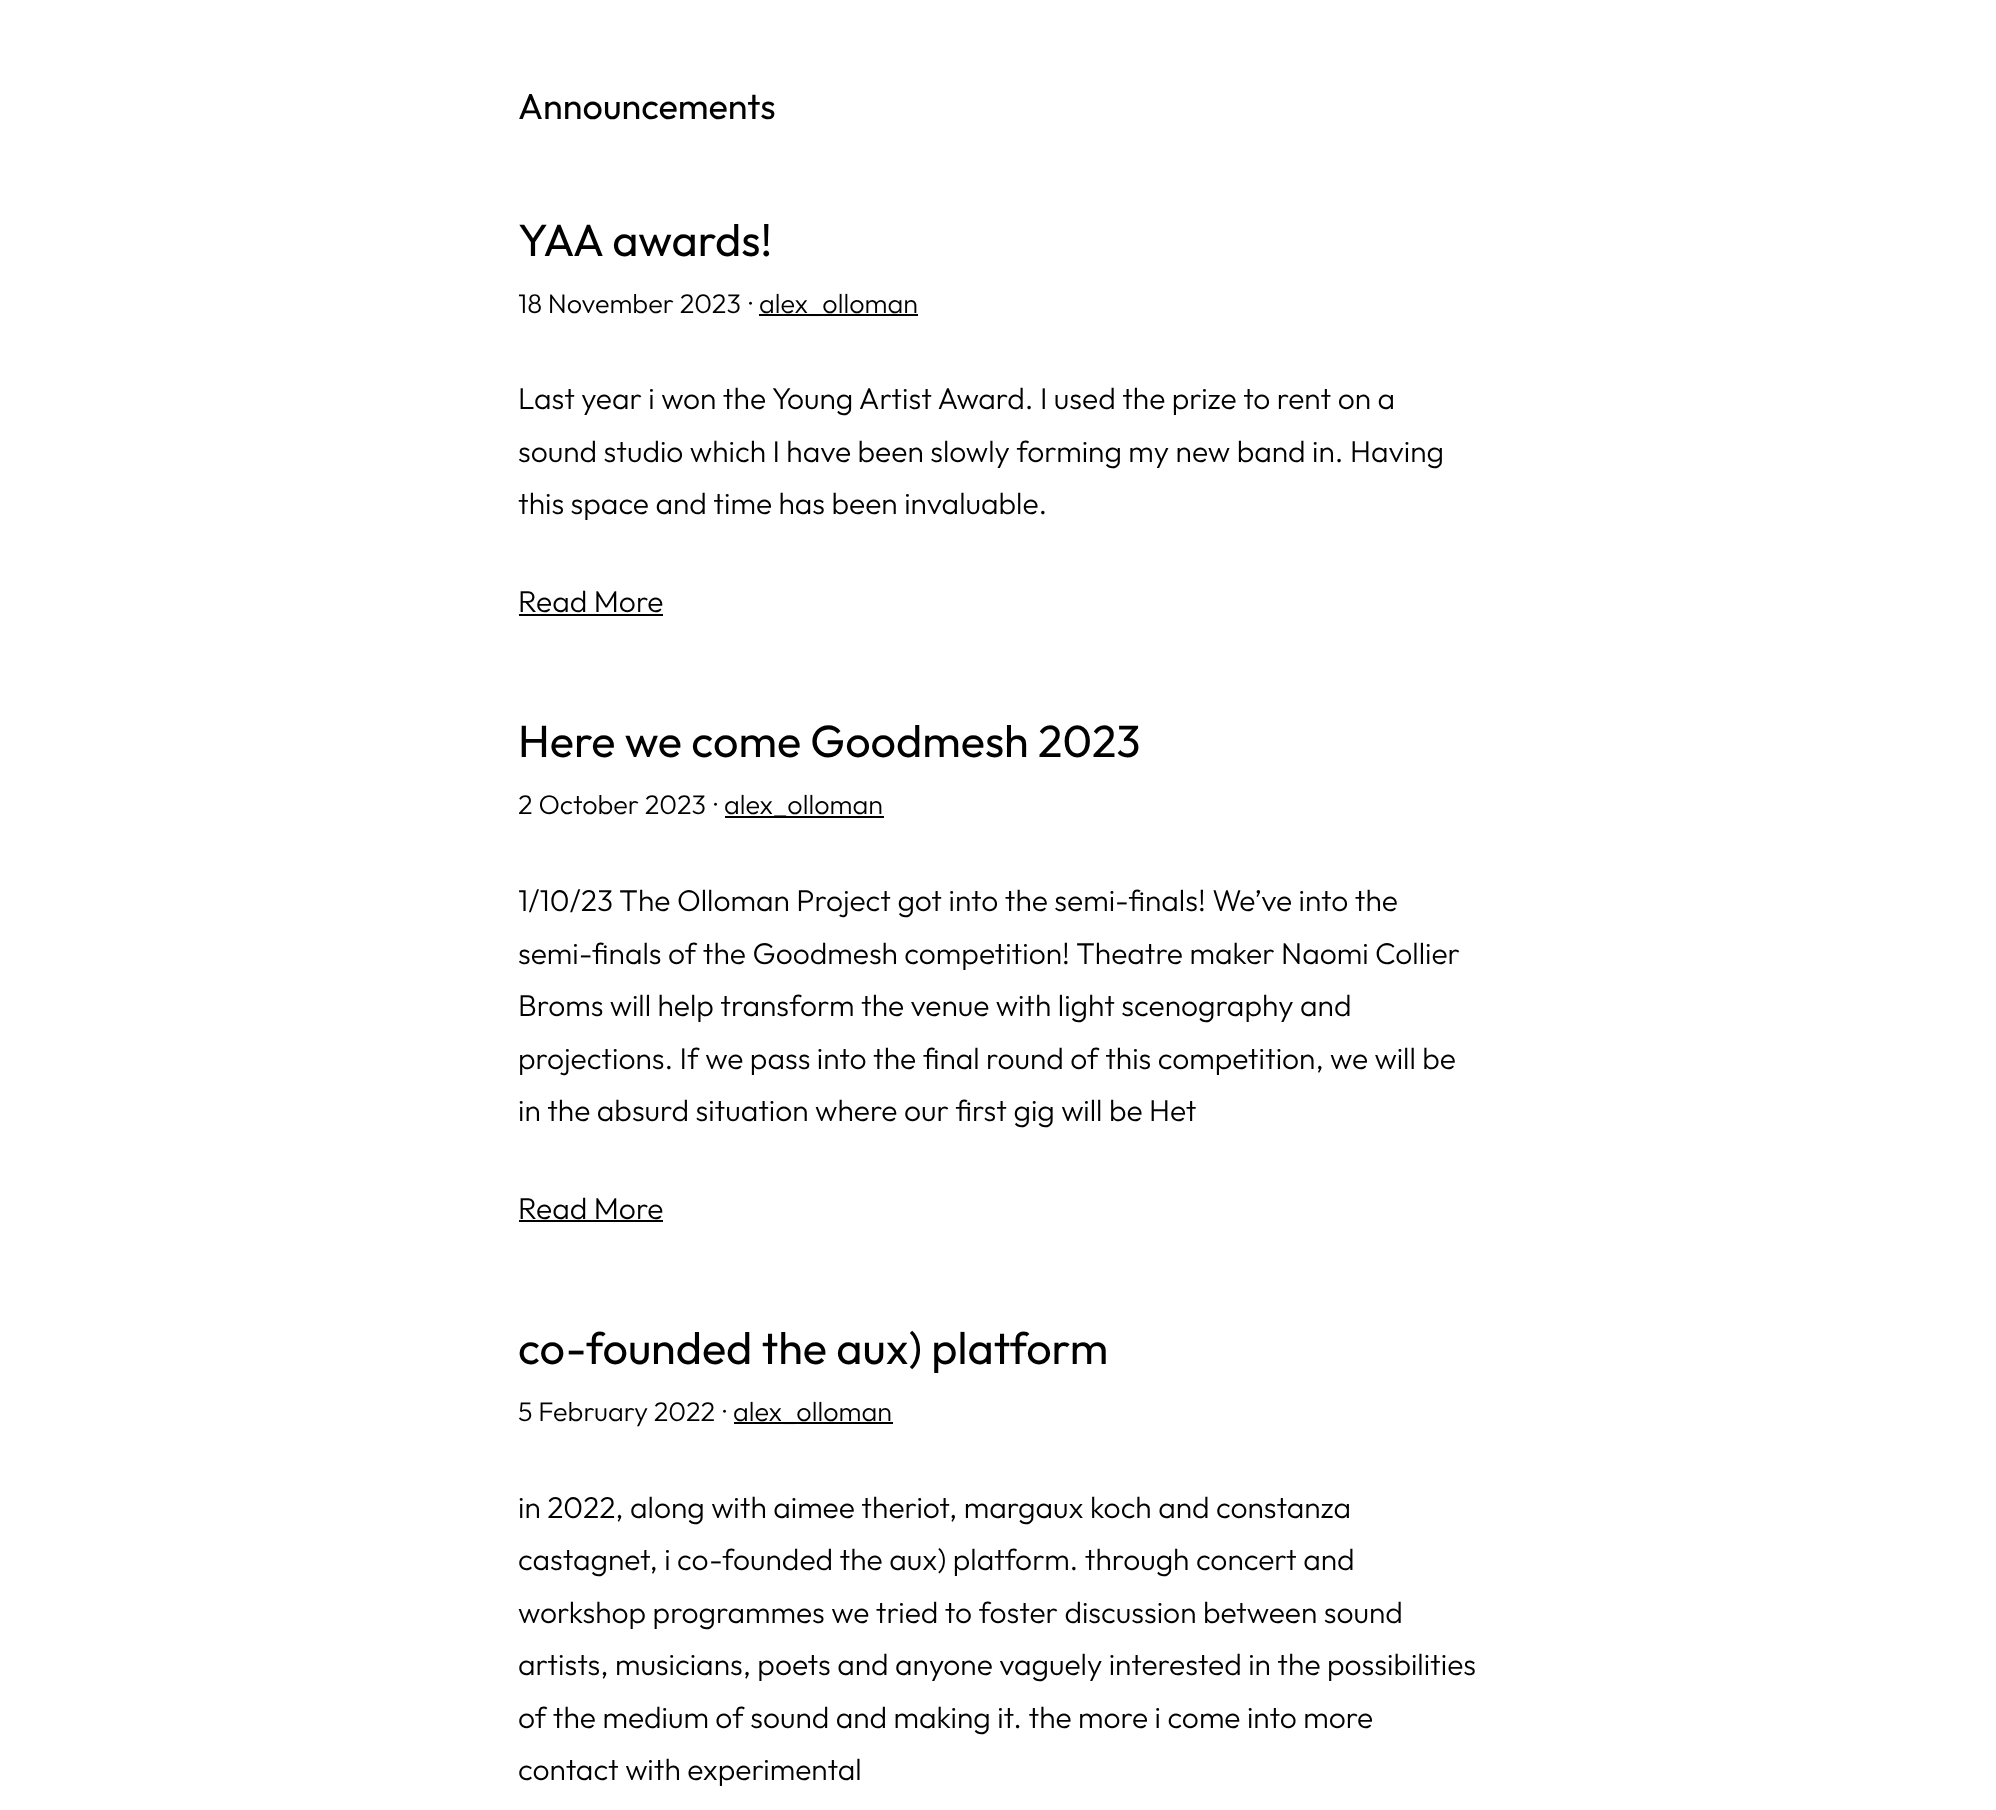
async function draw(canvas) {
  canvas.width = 1996
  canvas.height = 1810
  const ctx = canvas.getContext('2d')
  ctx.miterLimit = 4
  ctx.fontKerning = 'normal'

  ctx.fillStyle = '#fff'
  ctx.fillRect(0, 0, 1996, 1810)
  ctx.font = '36px Outfit'
  ctx.fillStyle = '#000'
  ctx.fillText('Announcements', 518, 119)
  ctx.font = '45px Outfit'
  ctx.fillText('YAA awards!', 518, 256)
  ctx.font = '300 27px Outfit'
  ctx.fillText('18 November 2023', 518, 313)
  ctx.fillText('·', 749, 313)
  ctx.fillRect(759, 314, 159, 2)
  ctx.fillText('alex_olloman', 759, 313)
  ctx.font = '300 30px Outfit'
  ctx.fillText('Last year i won the Young Artist Award. I used the prize to rent on a', 518, 409)
  ctx.fillText('sound studio which I have been slowly forming my new band in. Having', 518, 462)
  ctx.fillText('this space and time has been invaluable.', 518, 514)
  ctx.fillText('Read More', 518, 612)
  ctx.fillRect(519, 614, 144, 2)
  ctx.font = '45px Outfit'
  ctx.fillText('Here we come Goodmesh 2023', 518, 757)
  ctx.font = '300 27px Outfit'
  ctx.fillText('2 October 2023', 518, 814)
  ctx.fillText('·', 714, 814)
  ctx.fillRect(725, 816, 159, 2)
  ctx.fillText('alex_olloman', 724, 814)
  ctx.font = '300 30px Outfit'
  ctx.fillText('1/10/23 The Olloman Project got into the semi-finals! We’ve into the', 518, 911)
  ctx.fillText('semi-finals of the Goodmesh competition! Theatre maker Naomi Collier', 518, 964)
  ctx.fillText('Broms will help transform the venue with light scenography and', 518, 1016)
  ctx.fillText('projections. If we pass into the final round of this competition, we will be', 518, 1069)
  ctx.fillText('in the absurd situation where our first gig will be Het', 518, 1121)
  ctx.fillText('Read More', 518, 1219)
  ctx.fillRect(519, 1220, 144, 2)
  ctx.font = '45px Outfit'
  ctx.fillText('co-founded the aux) platform', 518, 1364)
  ctx.font = '300 27px Outfit'
  ctx.fillText('5 February 2022', 518, 1421)
  ctx.fillText('·', 723, 1421)
  ctx.fillRect(734, 1422, 159, 2)
  ctx.fillText('alex_olloman', 733, 1421)
  ctx.font = '300 30px Outfit'
  ctx.fillText('in 2022, along with aimee theriot, margaux koch and constanza', 518, 1518)
  ctx.fillText('castagnet, i co-founded the aux) platform. through concert and', 518, 1570)
  ctx.fillText('workshop programmes we tried to foster discussion between sound', 518, 1623)
  ctx.fillText('artists, musicians, poets and anyone vaguely interested in the possibilities', 518, 1675)
  ctx.fillText('of the medium of sound and making it. the more i come into more', 518, 1728)
  ctx.fillText('contact with experimental', 518, 1780)
}

draw(document.querySelector('canvas'))
